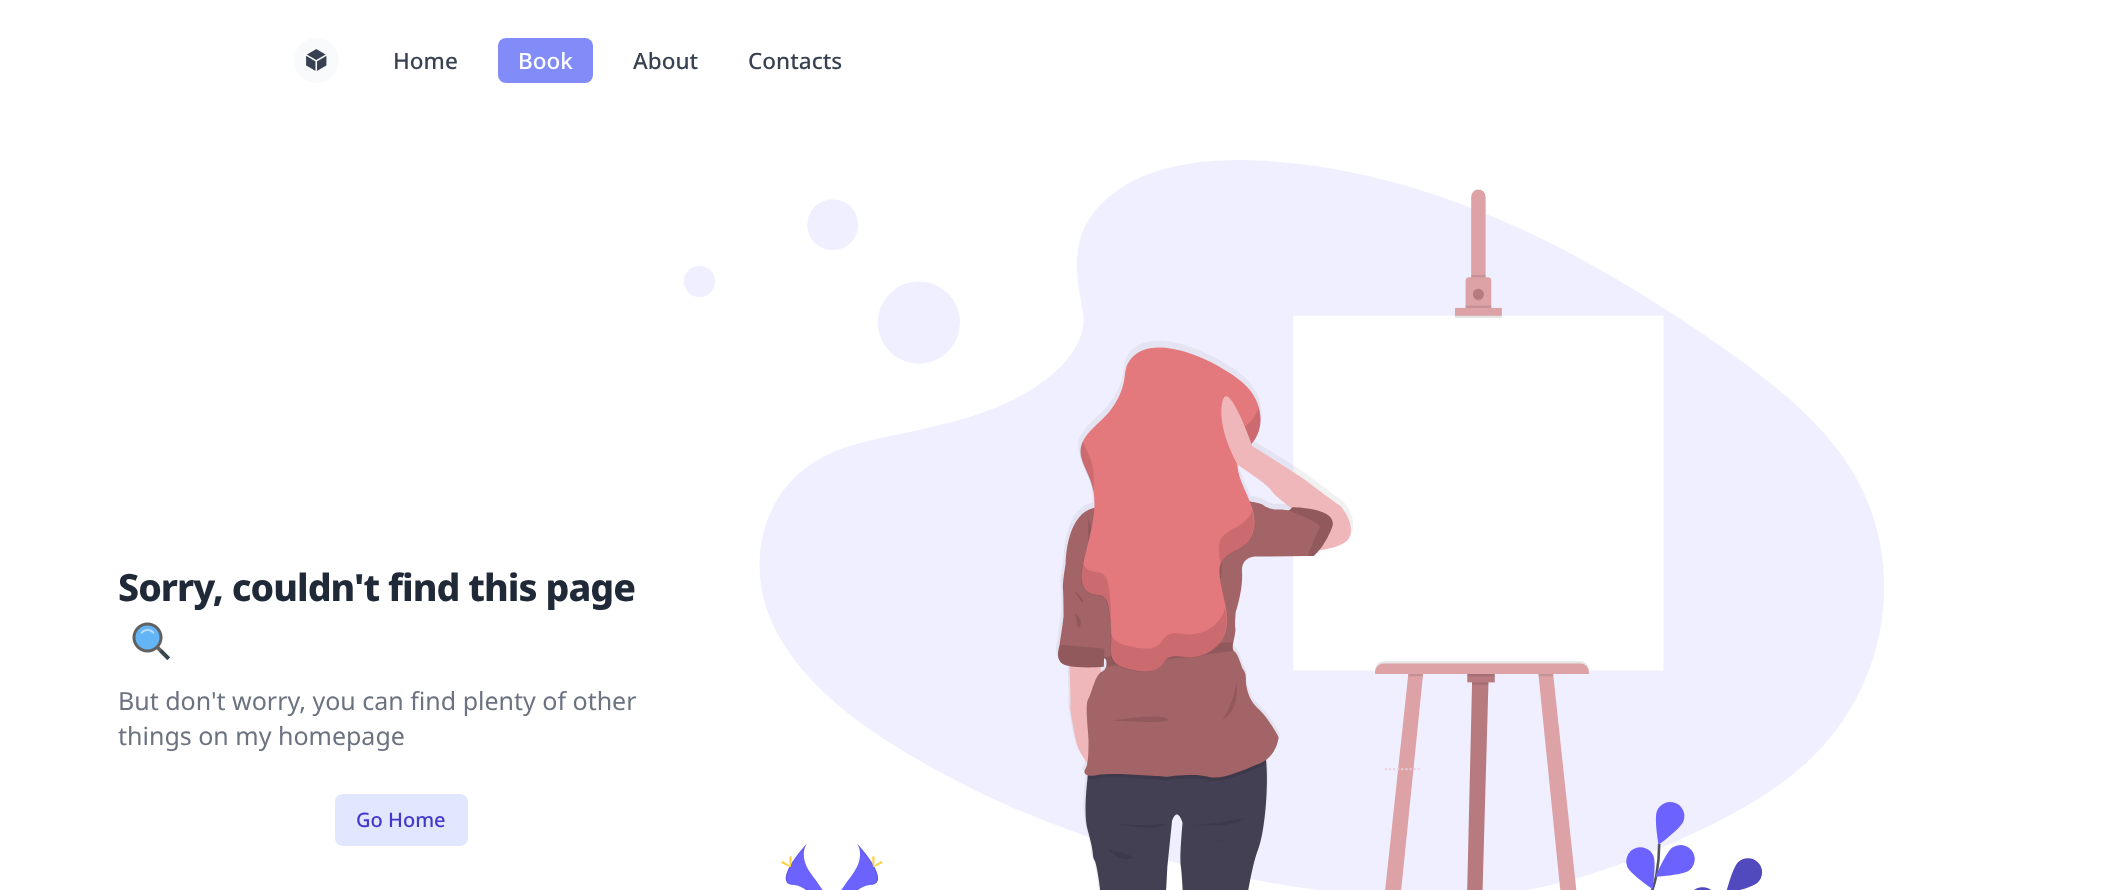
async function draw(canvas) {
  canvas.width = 2106
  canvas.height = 890
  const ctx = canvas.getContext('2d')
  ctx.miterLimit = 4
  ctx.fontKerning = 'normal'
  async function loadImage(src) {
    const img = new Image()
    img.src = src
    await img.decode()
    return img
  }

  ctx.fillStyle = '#fff'
  ctx.fillRect(0, 0, 2106, 890)
  ctx.fillStyle = '#f9fafb'
  ctx.beginPath()
  ctx.arc(316.5, 60.5, 22.5, 0, 2 * Math.PI)
  ctx.fill()
  ctx.drawImage(await loadImage('image0.png'), 306, 49, 21, 22)
  ctx.font = '500 22.5px Noto Sans'
  ctx.fillStyle = '#374151'
  ctx.fillText('Home', 393, 69)
  ctx.fillStyle = '#818cf8'
  ctx.beginPath()
  ctx.roundRect(498, 38, 95, 45, 8)
  ctx.fill()
  ctx.fillStyle = '#fff'
  ctx.fillText('Book', 518, 69)
  ctx.fillStyle = '#374151'
  ctx.fillText('About', 633, 69)
  ctx.fillText('Contacts', 748, 69)
  ctx.letterSpacing = '-0.95px'
  ctx.font = '800 37.5px Noto Sans'
  ctx.fillStyle = '#1f2937'
  ctx.fillText('Sorry, couldn\'t find this page', 118, 601)
  ctx.drawImage(await loadImage('image1.png'), 132, 622, 38, 38)
  ctx.letterSpacing = '0px'
  ctx.font = '25px Noto Sans'
  ctx.fillStyle = '#6b7280'
  ctx.fillText('But don\'t worry, you can find plenty of other', 118, 710)
  ctx.fillText('things on my homepage', 118, 745)
  ctx.fillStyle = '#e0e7ff'
  ctx.beginPath()
  ctx.roundRect(335, 794, 133, 52, 8)
  ctx.fill()
  ctx.font = '500 20px Noto Sans'
  ctx.fillStyle = '#4338ca'
  ctx.fillText('Go Home', 356, 827)
  ctx.drawImage(await loadImage('image2.png'), 684, 160, 1200, 730)
  ctx.font = '500 15px Noto Sans'
  ctx.fillStyle = '#e8cfda'
  ctx.fillText('.........', 1384, 770)
}

draw(document.querySelector('canvas'))
